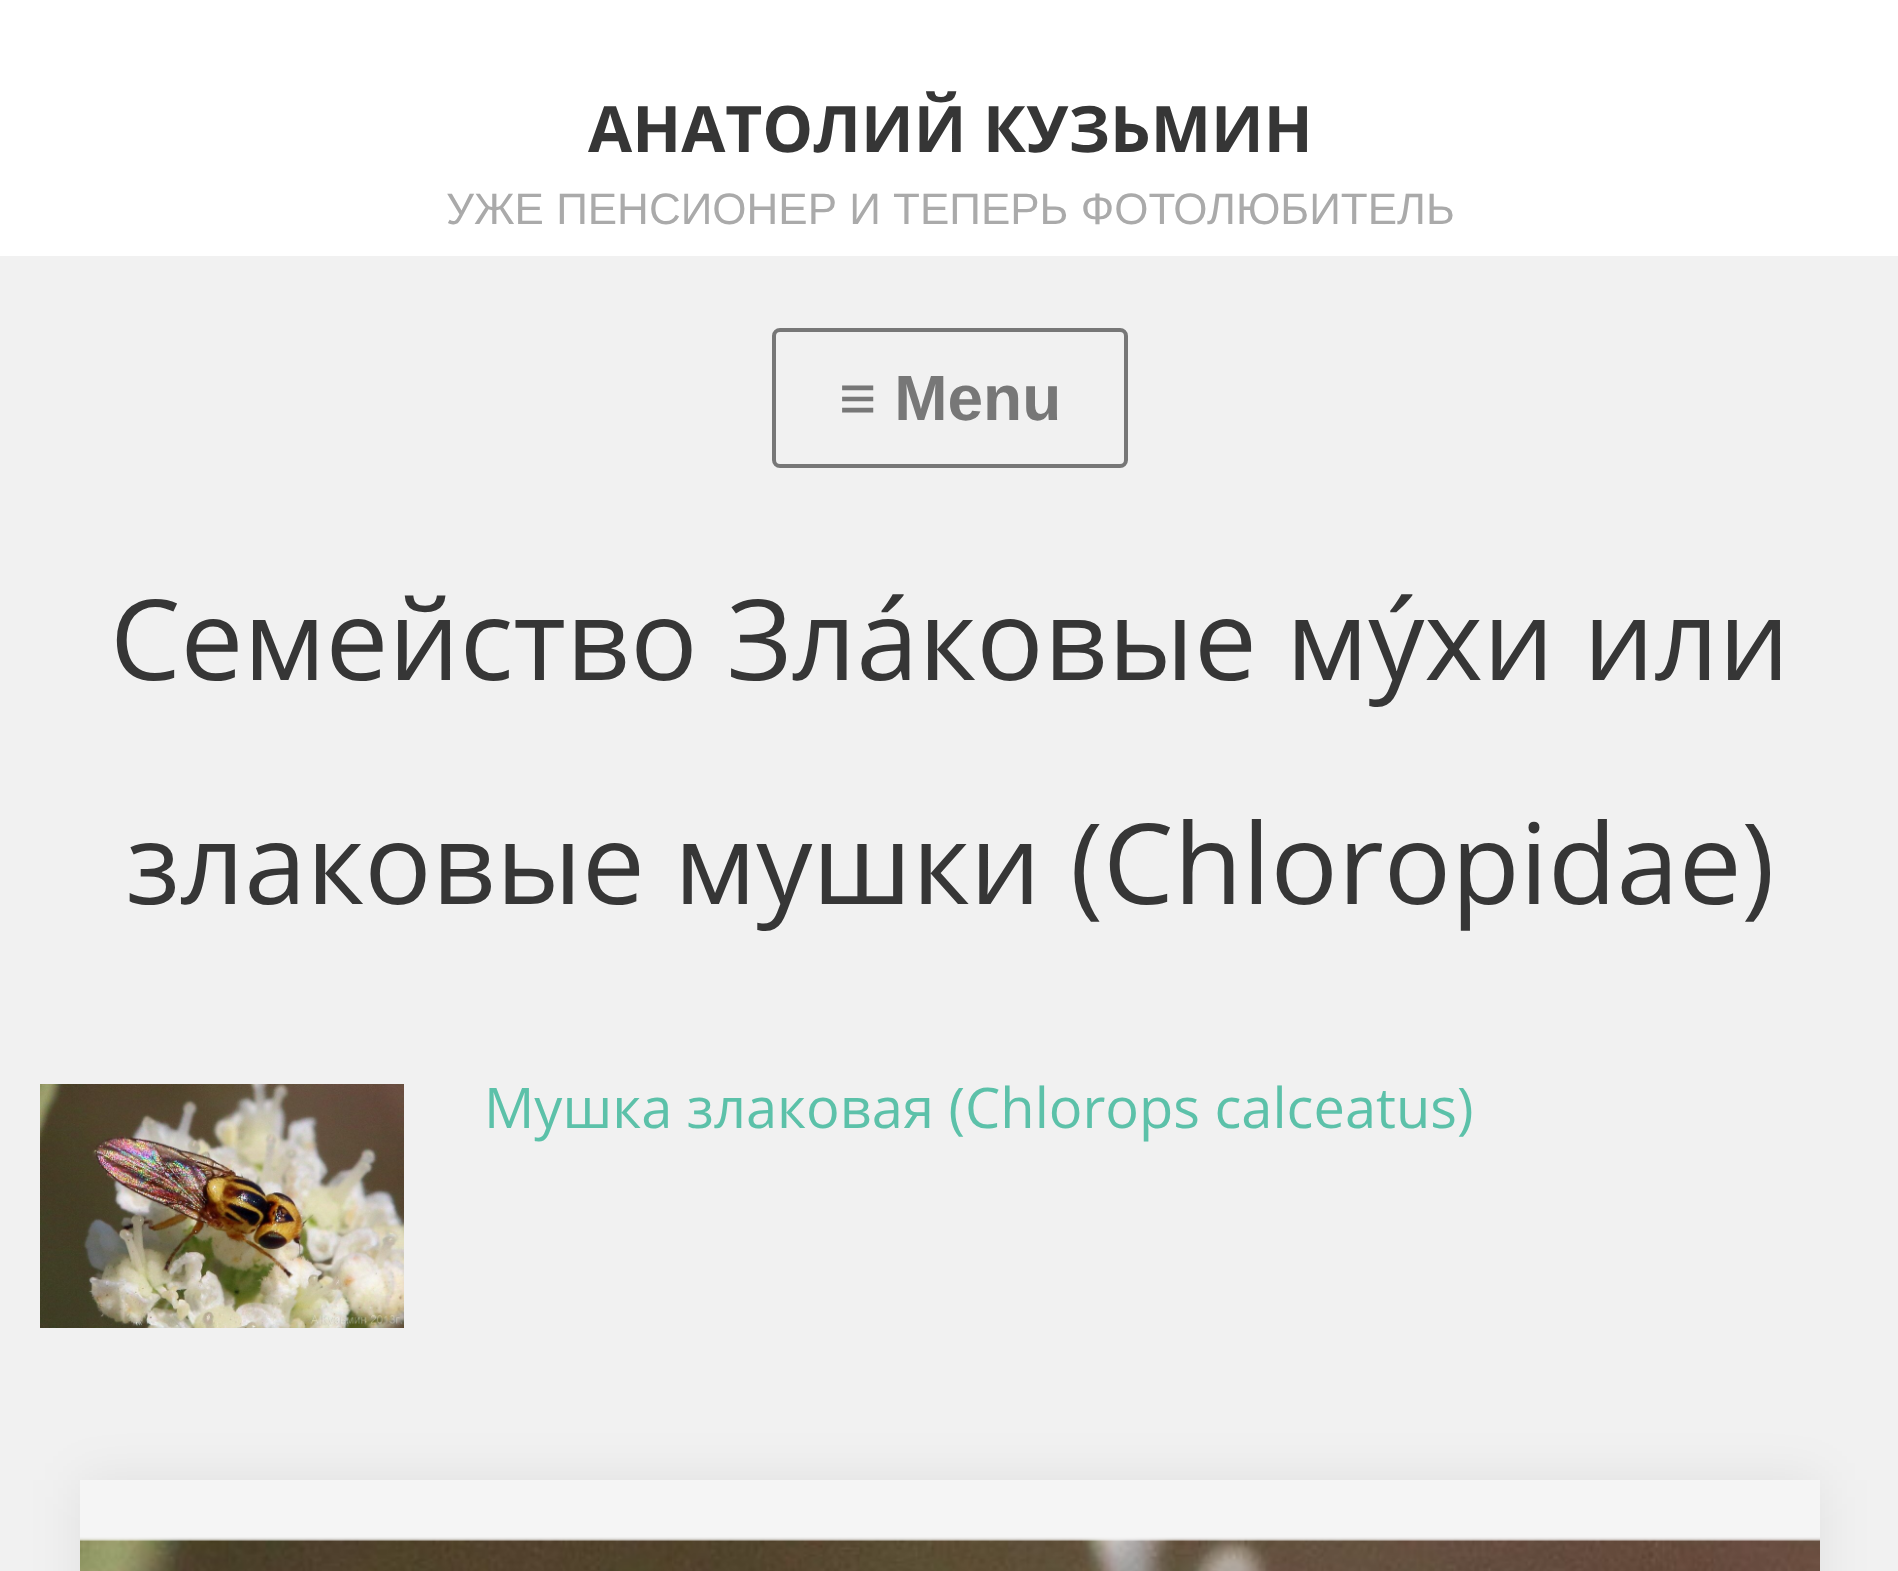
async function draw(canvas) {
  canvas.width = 1898
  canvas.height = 1571
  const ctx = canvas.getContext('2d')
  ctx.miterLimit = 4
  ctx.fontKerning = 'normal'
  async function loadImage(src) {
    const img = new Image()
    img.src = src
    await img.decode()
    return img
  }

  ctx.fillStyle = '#fff'
  ctx.fillRect(0, 0, 1898, 1571)
  ctx.font = 'bold 64px Open Sans'
  ctx.fillStyle = '#363636'
  ctx.fillText('АНАТОЛИЙ КУЗЬМИН', 588, 152)
  ctx.font = '44px Liberation Sans'
  ctx.fillStyle = '#aaa'
  ctx.fillText('УЖЕ ПЕНСИОНЕР И ТЕПЕРЬ ФОТОЛЮБИТЕЛЬ', 446, 224)
  ctx.fillStyle = '#f1f1f1'
  ctx.fillRect(0, 256, 1898, 1315)
  ctx.beginPath()
  ctx.roundRect(774, 330, 352, 136, 6)
  ctx.strokeStyle = '#777'
  ctx.lineWidth = 4
  ctx.stroke()
  ctx.font = 'bold 64px Liberation Sans'
  ctx.fillStyle = '#777'
  ctx.fillText('≡ Menu', 839, 420)
  ctx.font = '112px Open Sans'
  ctx.fillStyle = '#363636'
  ctx.fillText('Семейство Зла́ковые му́хи или', 110, 680)
  ctx.fillText('злаковые мушки (Chloropidae)', 126, 904)
  ctx.drawImage(await loadImage('image0.png'), 40, 1084, 364, 244)
  ctx.font = '56px Open Sans'
  ctx.fillStyle = '#5cc1a9'
  ctx.fillText('Мушка злаковая (Chlorops calceatus)', 484, 1128)
  ctx.fillStyle = '#00000012'
  ctx.filter = 'blur(26px)'
  ctx.beginPath()
  ctx.rect(80, 1480, 1740, 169)
  ctx.fill()
  ctx.filter = 'none'
  ctx.fillStyle = '#f5f5f5'
  ctx.fillRect(80, 1480, 1740, 61)
  ctx.drawImage(await loadImage('image1.png'), 80, 1537, 1740, 34)
}

draw(document.querySelector('canvas'))
